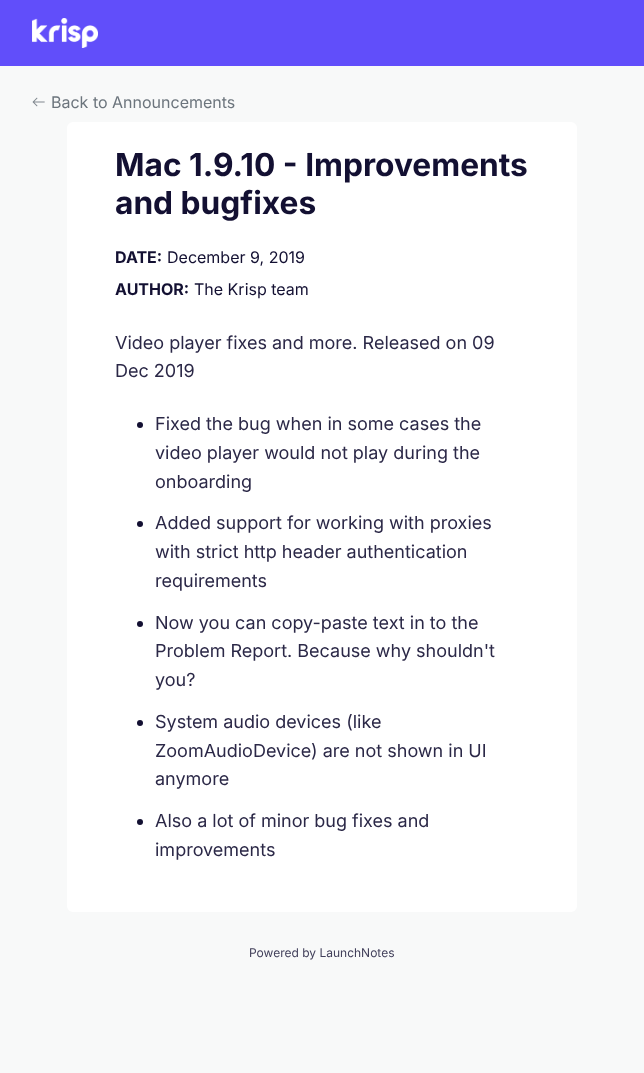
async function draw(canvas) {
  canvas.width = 644
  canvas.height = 1073
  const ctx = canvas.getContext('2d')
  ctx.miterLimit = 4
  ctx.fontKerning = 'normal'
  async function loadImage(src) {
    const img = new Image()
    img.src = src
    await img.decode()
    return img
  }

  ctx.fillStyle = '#f8f9f9'
  ctx.fillRect(0, 0, 644, 1073)
  ctx.fillStyle = '#614efa'
  ctx.fillRect(0, 0, 644, 66)
  ctx.drawImage(await loadImage('image0.png'), 32, 18, 66, 30)
  ctx.drawImage(await loadImage('image1.png'), 32, 97, 13, 10)
  ctx.font = '16px Inter'
  ctx.fillStyle = '#6c757d'
  ctx.fillText('Back to Announcements', 51, 108)
  ctx.fillStyle = '#fff'
  ctx.beginPath()
  ctx.roundRect(67, 122, 510, 790, 6)
  ctx.fill()
  ctx.font = 'bold 31.7px Inter'
  ctx.fillStyle = '#131032'
  ctx.fillText('Mac 1.9.10 - Improvements', 115, 176)
  ctx.fillText('and bugfixes', 115, 214)
  ctx.font = 'bold 16px Inter'
  ctx.fillText('DATE:', 115, 263)
  ctx.font = '16px Inter'
  ctx.fillText('December 9, 2019', 167, 263)
  ctx.font = 'bold 16px Inter'
  ctx.fillText('AUTHOR:', 115, 295)
  ctx.font = '16px Inter'
  ctx.fillText('The Krisp team', 194, 295)
  ctx.font = '18px Inter'
  ctx.fillStyle = '#2b2847'
  ctx.fillText('Video player fixes and more. Released on 09', 115, 349)
  ctx.fillText('Dec 2019', 115, 377)
  ctx.fillStyle = '#131032'
  ctx.beginPath()
  ctx.arc(140, 425, 3, 0, 2 * Math.PI)
  ctx.fill()
  ctx.fillStyle = '#2b2847'
  ctx.fillText('Fixed the bug when in some cases the', 155, 430)
  ctx.fillText('video player would not play during the', 155, 459)
  ctx.fillText('onboarding', 155, 488)
  ctx.fillStyle = '#131032'
  ctx.beginPath()
  ctx.arc(140, 524, 3, 0, 2 * Math.PI)
  ctx.fill()
  ctx.fillStyle = '#2b2847'
  ctx.fillText('Added support for working with proxies', 155, 529)
  ctx.fillText('with strict http header authentication', 155, 558)
  ctx.fillText('requirements', 155, 587)
  ctx.fillStyle = '#131032'
  ctx.beginPath()
  ctx.arc(140, 624, 3, 0, 2 * Math.PI)
  ctx.fill()
  ctx.fillStyle = '#2b2847'
  ctx.fillText('Now you can copy-paste text in to the', 155, 629)
  ctx.fillText('Problem Report. Because why shouldn\'t', 155, 657)
  ctx.fillText('you?', 155, 686)
  ctx.fillStyle = '#131032'
  ctx.beginPath()
  ctx.arc(140, 723, 3, 0, 2 * Math.PI)
  ctx.fill()
  ctx.fillStyle = '#2b2847'
  ctx.fillText('System audio devices (like', 155, 728)
  ctx.fillText('ZoomAudioDevice) are not shown in UI', 155, 757)
  ctx.fillText('anymore', 155, 785)
  ctx.fillStyle = '#131032'
  ctx.beginPath()
  ctx.arc(140, 822, 3, 0, 2 * Math.PI)
  ctx.fill()
  ctx.fillStyle = '#2b2847'
  ctx.fillText('Also a lot of minor bug fixes and', 155, 827)
  ctx.fillText('improvements', 155, 856)
  ctx.font = '12px Inter'
  ctx.fillStyle = '#413f5a'
  ctx.fillText('Powered by LaunchNotes', 249, 957)
}

draw(document.querySelector('canvas'))
